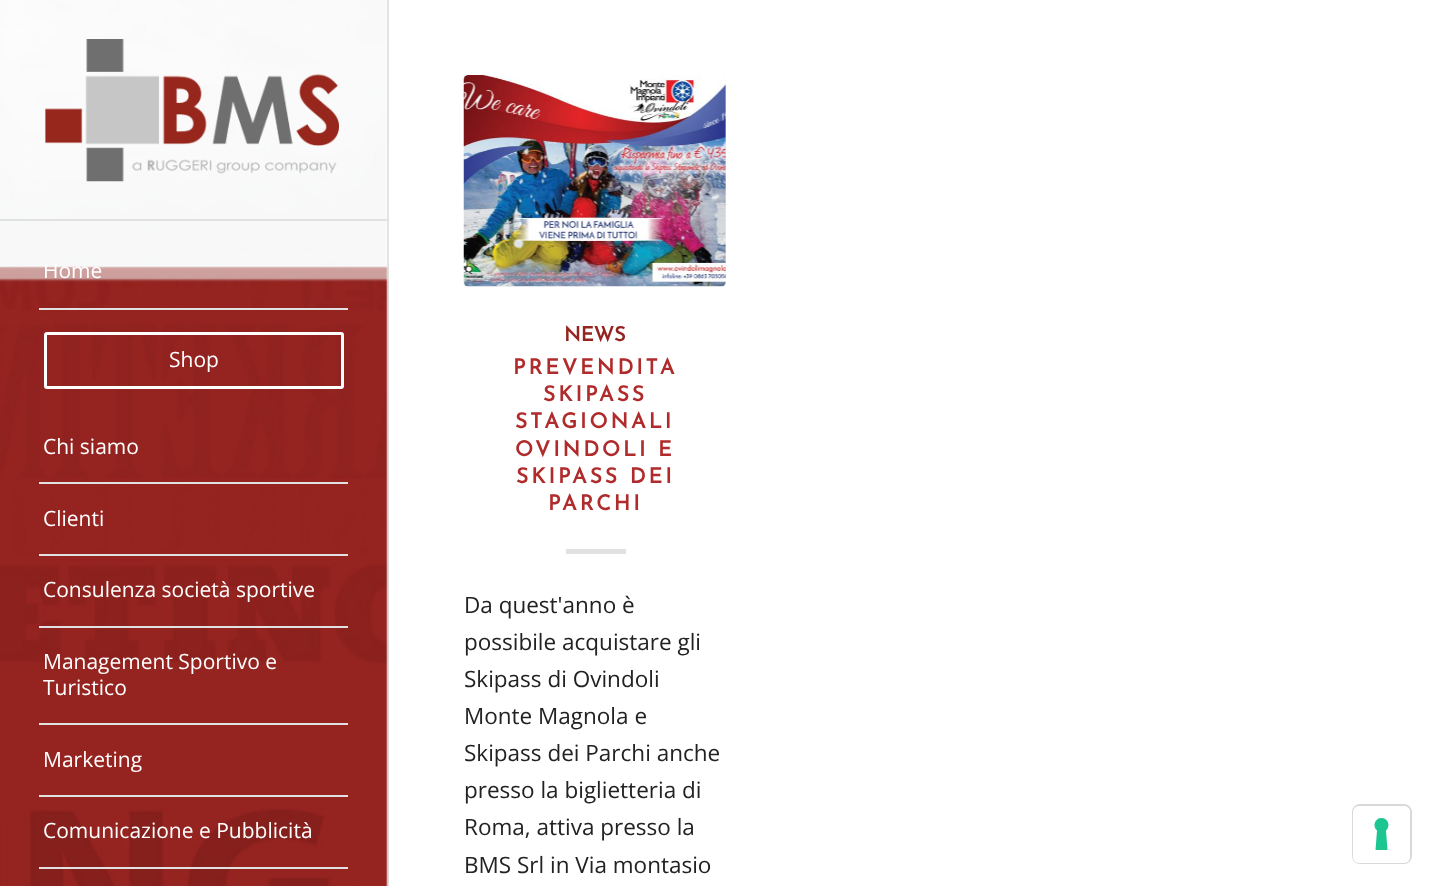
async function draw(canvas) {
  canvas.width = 1434
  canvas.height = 886
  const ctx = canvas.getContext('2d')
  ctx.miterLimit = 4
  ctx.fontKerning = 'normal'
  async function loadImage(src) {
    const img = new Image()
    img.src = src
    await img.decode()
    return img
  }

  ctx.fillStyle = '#fff'
  ctx.fillRect(0, 0, 1434, 886)
  ctx.fillStyle = '#e1e1e1'
  ctx.fillRect(387, 0, 2, 886)
  ctx.drawImage(await loadImage('image0.png'), 0, 0, 389, 886)
  ctx.fillRect(0, 219, 387, 2)
  ctx.drawImage(await loadImage('image1.png'), 45, 39, 294, 143)
  ctx.fillRect(39, 308, 309, 2)
  ctx.font = '21px Open Sans'
  ctx.fillStyle = '#fff'
  ctx.fillText('Home', 43, 278)
  ctx.beginPath()
  ctx.roundRect(45.5, 333.5, 297, 54, 1.5)
  ctx.strokeStyle = '#fff'
  ctx.lineWidth = 3
  ctx.stroke()
  ctx.fillText('Shop', 169, 367)
  ctx.fillStyle = '#e1e1e1'
  ctx.fillRect(39, 482, 309, 2)
  ctx.fillStyle = '#fff'
  ctx.fillText('Chi siamo', 43, 454)
  ctx.fillStyle = '#e1e1e1'
  ctx.fillRect(39, 554, 309, 2)
  ctx.fillStyle = '#fff'
  ctx.fillText('Clienti', 43, 526)
  ctx.fillStyle = '#e1e1e1'
  ctx.fillRect(39, 626, 309, 2)
  ctx.fillStyle = '#fff'
  ctx.fillText('Consulenza società sportive', 43, 597)
  ctx.fillStyle = '#e1e1e1'
  ctx.fillRect(39, 723, 309, 2)
  ctx.fillStyle = '#fff'
  ctx.fillText('Management Sportivo e', 43, 669)
  ctx.fillText('Turistico', 43, 695)
  ctx.fillStyle = '#e1e1e1'
  ctx.fillRect(39, 795, 309, 2)
  ctx.fillStyle = '#fff'
  ctx.fillText('Marketing', 43, 767)
  ctx.fillStyle = '#e1e1e1'
  ctx.fillRect(39, 867, 309, 2)
  ctx.fillStyle = '#fff'
  ctx.fillText('Comunicazione e Pubblicità', 43, 838)
  ctx.fillStyle = '#f0f0f0'
  ctx.beginPath()
  ctx.roundRect(464, 75, 262, 212, 5)
  ctx.fill()
  ctx.drawImage(await loadImage('image2.png'), 463, 75, 263, 212)
  ctx.font = 'bold 20px Josefin Sans'
  ctx.fillStyle = '#952420'
  ctx.fillText('NEWS', 564, 341)
  ctx.letterSpacing = '3px'
  ctx.font = 'bold 21px Josefin Sans'
  ctx.fillStyle = '#b02b2b'
  ctx.fillText('PREVENDITA', 513, 374)
  ctx.fillText('SKIPASS', 543, 401)
  ctx.fillText('STAGIONALI', 515, 428)
  ctx.fillText('OVINDOLI E', 515, 456)
  ctx.fillText('SKIPASS DEI', 516, 483)
  ctx.fillText('PARCHI', 548, 510)
  ctx.fillStyle = '#e1e1e1'
  ctx.fillRect(566, 549, 60, 5)
  ctx.letterSpacing = '0px'
  ctx.font = '22.5px Open Sans'
  ctx.fillStyle = '#222'
  ctx.fillText('Da quest\'anno è', 464, 613)
  ctx.fillText('possibile acquistare gli', 464, 650)
  ctx.fillText('Skipass di Ovindoli', 464, 687)
  ctx.fillText('Monte Magnola e', 464, 724)
  ctx.fillText('Skipass dei Parchi anche', 464, 761)
  ctx.fillText('presso la biglietteria di', 464, 798)
  ctx.fillText('Roma, attiva presso la', 464, 835)
  ctx.fillText('BMS Srl in Via montasio', 464, 873)
  ctx.beginPath()
  ctx.roundRect(1353, 805, 58, 58, 7)
  ctx.strokeStyle = '#d9d9d9'
  ctx.lineWidth = 2
  ctx.stroke()
  ctx.fillStyle = '#fff'
  ctx.beginPath()
  ctx.roundRect(1353, 806, 57, 57, 6)
  ctx.fill()
  ctx.fillStyle = '#1cc691'
  ctx.beginPath()
  ctx.moveTo(1381.5, 818)
  ctx.bezierCurveTo(1388, 818, 1391, 826, 1386, 830.5)
  ctx.lineTo(1387.5, 850)
  ctx.lineTo(1375.5, 850)
  ctx.lineTo(1377, 830.5)
  ctx.bezierCurveTo(1372, 826, 1375, 818, 1381.5, 818)
  ctx.closePath()
  ctx.fill('evenodd')
}

draw(document.querySelector('canvas'))
